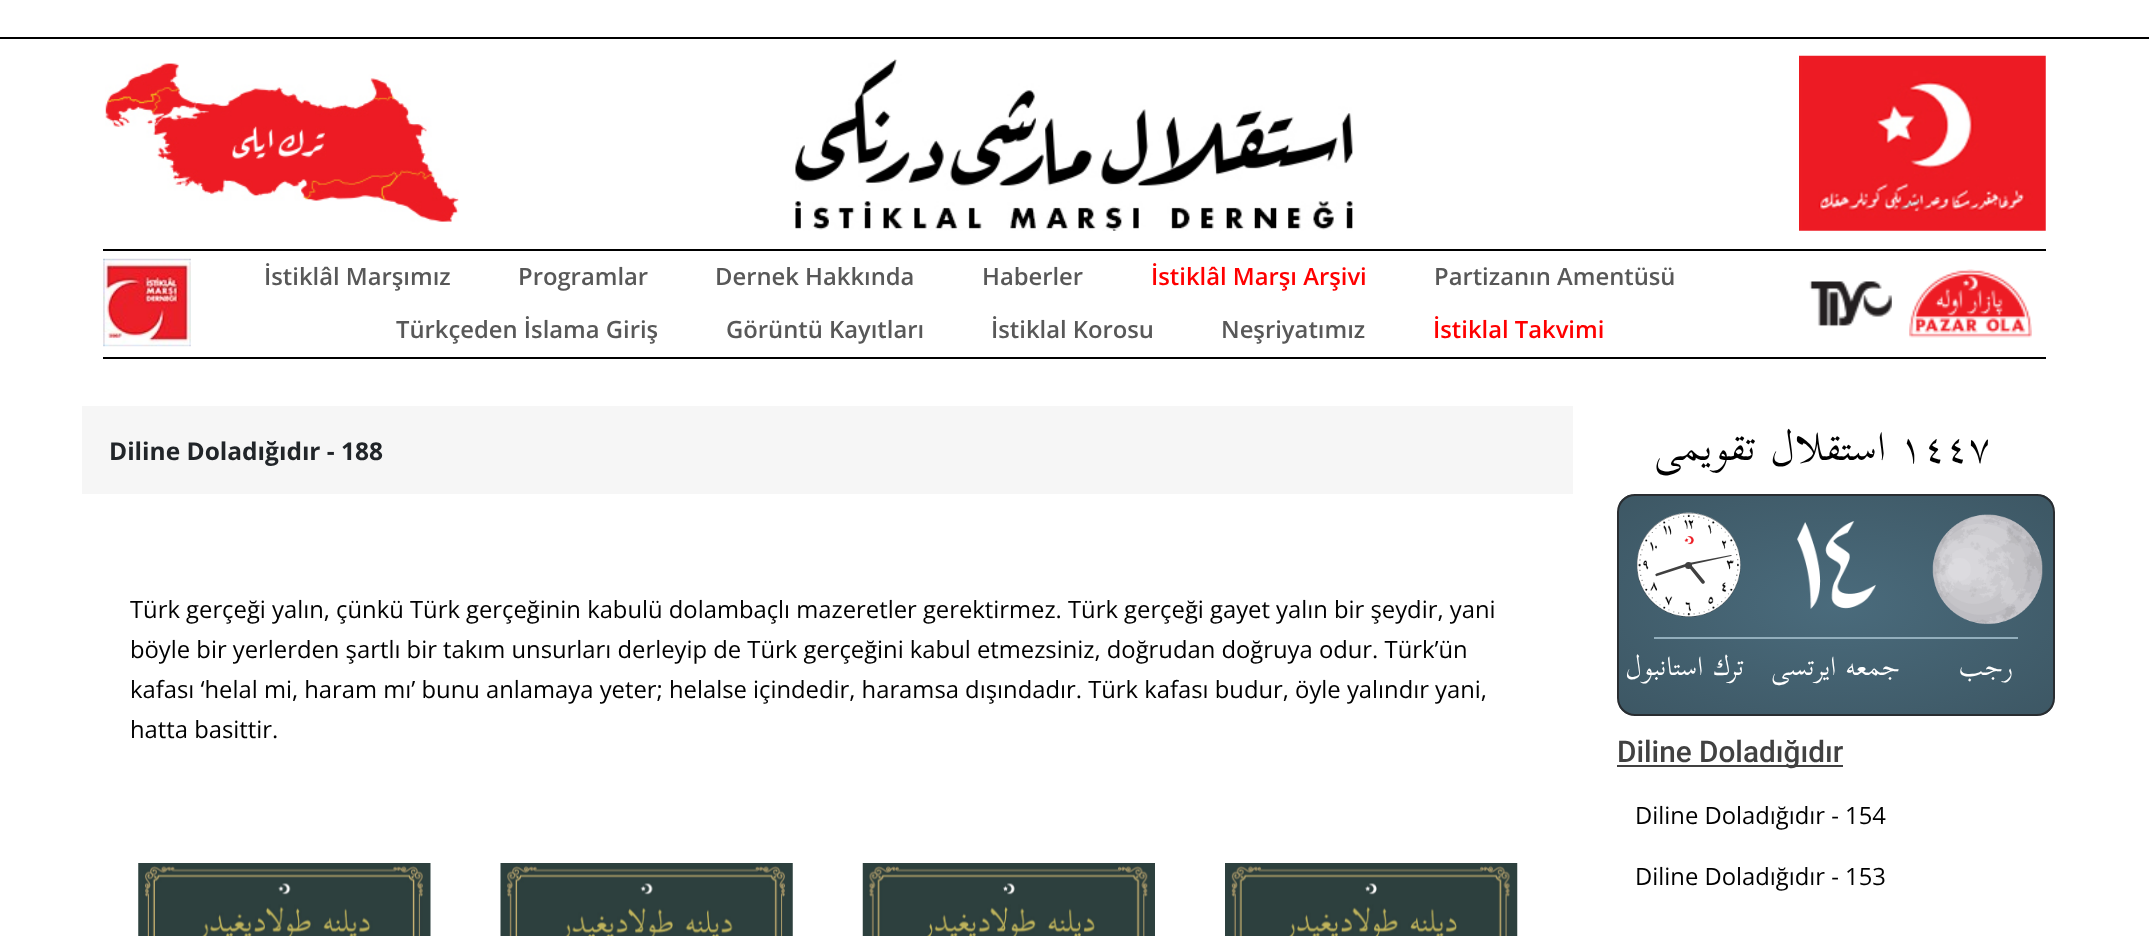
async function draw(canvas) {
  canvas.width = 2149
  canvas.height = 936
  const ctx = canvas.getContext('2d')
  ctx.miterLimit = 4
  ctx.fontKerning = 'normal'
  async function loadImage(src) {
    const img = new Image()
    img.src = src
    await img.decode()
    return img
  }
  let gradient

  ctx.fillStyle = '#fff'
  ctx.fillRect(0, 0, 2149, 936)
  ctx.fillStyle = '#000'
  ctx.fillRect(0, 37, 2149, 2)
  ctx.drawImage(await loadImage('image0.png'), 105, 63, 354, 159)
  ctx.drawImage(await loadImage('image1.png'), 795, 59, 558, 172)
  ctx.drawImage(await loadImage('image2.png'), 1799, 55, 247, 176)
  ctx.fillRect(103, 249, 1943, 2)
  ctx.fillRect(103, 357, 1943, 2)
  ctx.drawImage(await loadImage('image3.png'), 103, 258, 88, 89)
  ctx.font = '600 23.8px Open Sans'
  ctx.fillStyle = '#585858'
  ctx.fillText('İstiklâl Marşımız', 264, 285)
  ctx.fillText('Programlar', 518, 285)
  ctx.fillText('Dernek Hakkında', 715, 285)
  ctx.fillText('Haberler', 982, 285)
  ctx.fillStyle = '#f00'
  ctx.fillText('İstiklâl Marşı Arşivi', 1151, 285)
  ctx.fillStyle = '#585858'
  ctx.fillText('Partizanın Amentüsü', 1434, 285)
  ctx.fillText('Türkçeden İslama Giriş', 396, 338)
  ctx.fillText('Görüntü Kayıtları', 726, 338)
  ctx.fillText('İstiklal Korosu', 991, 338)
  ctx.fillText('Neşriyatımız', 1221, 338)
  ctx.fillStyle = '#f00'
  ctx.fillText('İstiklal Takvimi', 1433, 338)
  ctx.drawImage(await loadImage('image4.png'), 1809, 281, 83, 46)
  ctx.drawImage(await loadImage('image5.png'), 1909, 269, 123, 69)
  ctx.fillStyle = '#f6f6f6'
  ctx.fillRect(82, 406, 1491, 88)
  ctx.font = 'bold 24.5px Open Sans'
  ctx.fillStyle = '#212529'
  ctx.fillText('Diline Doladığıdır - 188', 109, 460)
  ctx.font = '23.8px Open Sans'
  ctx.fillStyle = '#000'
  ctx.fillText('Türk gerçeği yalın, çünkü Türk gerçeğinin kabulü dolambaçlı mazeretler gerektirmez. Türk gerçeği gayet yalın bir şeydir, yani', 130, 618)
  ctx.fillText('böyle bir yerlerden şartlı bir takım unsurları derleyip de Türk gerçeğini kabul etmezsiniz, doğrudan doğruya odur. Türk’ün', 130, 658)
  ctx.fillText('kafası ‘helal mi, haram mı’ bunu anlamaya yeter; helalse içindedir, haramsa dışındadır. Türk kafası budur, öyle yalındır yani,', 130, 698)
  ctx.fillText('hatta basittir.', 130, 738)
  ctx.drawImage(await loadImage('image6.png'), 138, 863, 293, 73)
  ctx.drawImage(await loadImage('image7.png'), 500, 863, 293, 73)
  ctx.drawImage(await loadImage('image8.png'), 862, 863, 293, 73)
  ctx.drawImage(await loadImage('image9.png'), 1225, 863, 293, 73)
  ctx.direction = 'rtl'
  ctx.font = '58px "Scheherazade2"'
  ctx.fillText('استقلال تقویمی', 1886, 460)
  ctx.direction = 'ltr'
  ctx.fillText('١٤٤٧', 1900, 460)
  ctx.save()
  ctx.beginPath()
  ctx.roundRect(1617, 494, 438, 222, 18)
  ctx.clip()
  gradient = ctx.createRadialGradient(1836, 1198.29, 0, 1836, 1198.29, 307)
  gradient.addColorStop(0, '#4a6b7c')
  gradient.addColorStop(1, '#3d5764')
  ctx.fillStyle = gradient
  ctx.beginPath()
  ctx.rect(1619, 495, 434, 219)
  ctx.save()
  ctx.clip()
  ctx.scale(1, 155 / 307)
  ctx.fillRect(0, 0, 2149, 1854)
  ctx.restore()
  ctx.restore()
  ctx.beginPath()
  ctx.roundRect(1618, 495, 436, 220, 17)
  ctx.strokeStyle = '#292d31'
  ctx.lineWidth = 2
  ctx.stroke()
  ctx.drawImage(await loadImage('image10.png'), 1637, 512, 104, 105)
  ctx.fillStyle = '#404040'
  ctx.beginPath()
  ctx.moveTo(1704, 583.5)
  ctx.bezierCurveTo(1703.5, 584, 1702.5, 584, 1701.5, 583)
  ctx.lineTo(1687.5, 565.5)
  ctx.bezierCurveTo(1687, 564.5, 1687, 563.5, 1687.5, 563)
  ctx.bezierCurveTo(1688.5, 562.5, 1689.5, 562.5, 1690, 563.5)
  ctx.lineTo(1704.5, 581)
  ctx.bezierCurveTo(1705, 581.5, 1705, 583, 1704, 583.5)
  ctx.closePath()
  ctx.fill()
  ctx.beginPath()
  ctx.moveTo(1732, 555)
  ctx.lineTo(1731, 556)
  ctx.lineTo(1690, 565)
  ctx.lineTo(1689, 564)
  ctx.lineTo(1689, 563)
  ctx.lineTo(1731, 555)
  ctx.closePath()
  ctx.fill()
  ctx.beginPath()
  ctx.moveTo(1655.5, 575)
  ctx.bezierCurveTo(1655, 574.5, 1655.5, 574, 1656.5, 573.5)
  ctx.lineTo(1687, 563.5)
  ctx.bezierCurveTo(1688, 563.5, 1688.5, 563.5, 1689, 564.5)
  ctx.bezierCurveTo(1689, 565, 1688.5, 566, 1688, 566)
  ctx.lineTo(1657, 576)
  ctx.bezierCurveTo(1656.5, 576.5, 1655.5, 576, 1655.5, 575)
  ctx.closePath()
  ctx.fill()
  ctx.beginPath()
  ctx.arc(1688.5, 565.5, 3.5, 0, 2 * Math.PI)
  ctx.fill()
  ctx.drawImage(await loadImage('image11.png'), 1797, 521, 79, 88)
  ctx.drawImage(await loadImage('image12.png'), 1932, 514, 111, 111)
  ctx.fillStyle = '#92aebc'
  ctx.fillRect(1654, 637, 364, 2)
  ctx.direction = 'rtl'
  ctx.font = '38.5px "Scheherazade2"'
  ctx.fillStyle = '#fff'
  ctx.fillText('ترك استانبول', 1744, 675)
  ctx.fillText('جمعە ایرتسی', 1900, 675)
  ctx.fillText('رجب', 2013, 675)
  ctx.fillStyle = '#414141'
  ctx.fillRect(1617, 765, 226, 2)
  ctx.direction = 'ltr'
  ctx.font = '500 29.75px Roboto'
  ctx.fillText('Diline Doladığıdır', 1617, 762)
  ctx.font = '23.8px Open Sans'
  ctx.fillStyle = '#000'
  ctx.fillText('Diline Doladığıdır - 154', 1635, 824)
  ctx.fillText('Diline Doladığıdır - 153', 1635, 885)
}

draw(document.querySelector('canvas'))
